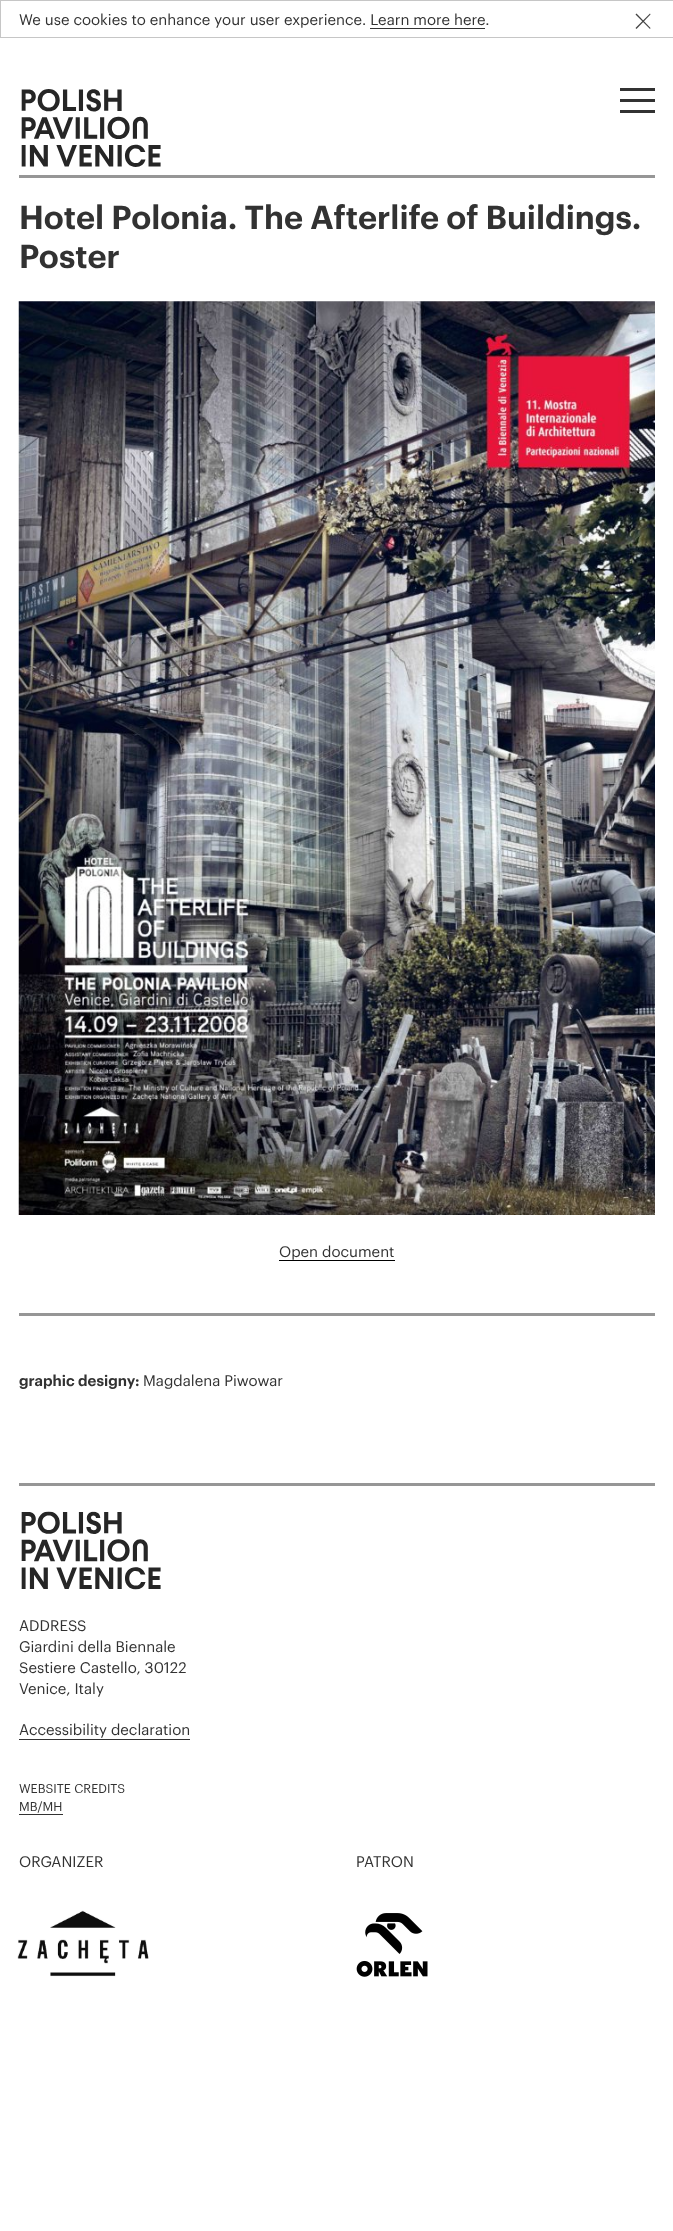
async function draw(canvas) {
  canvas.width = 673
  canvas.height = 2231
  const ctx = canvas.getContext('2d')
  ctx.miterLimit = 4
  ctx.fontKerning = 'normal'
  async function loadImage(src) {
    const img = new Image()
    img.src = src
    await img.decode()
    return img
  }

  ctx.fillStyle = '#fff'
  ctx.fillRect(0, 0, 673, 2231)
  ctx.strokeStyle = '#c6c6c6'
  ctx.strokeRect(0.5, 0.5, 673, 37)
  ctx.font = '15px Graphik'
  ctx.fillStyle = '#323232'
  ctx.fillText('We use cookies to enhance your user experience. Learn more here.', 19, 25)
  ctx.fillStyle = '#444'
  ctx.beginPath()
  ctx.moveTo(650, 13.5)
  ctx.lineTo(650.5, 14.5)
  ctx.lineTo(636.5, 29)
  ctx.lineTo(635.5, 28)
  ctx.closePath()
  ctx.fill()
  ctx.beginPath()
  ctx.moveTo(635.5, 14.5)
  ctx.lineTo(636.5, 13.5)
  ctx.lineTo(650.5, 28)
  ctx.lineTo(650, 29)
  ctx.closePath()
  ctx.fill()
  ctx.fillStyle = '#323232'
  ctx.fillRect(370, 28, 115, 1)
  ctx.fillStyle = '#969696'
  ctx.fillRect(19, 175, 636, 3)
  ctx.drawImage(await loadImage('image0.png'), 21, 89, 140, 78)
  ctx.fillStyle = '#323232'
  ctx.fillRect(620, 88, 35, 3)
  ctx.fillRect(620, 99, 35, 3)
  ctx.fillRect(620, 110, 35, 3)
  ctx.font = '600 32.5px Graphik'
  ctx.fillText('Hotel Polonia. The Afterlife of Buildings.', 19, 229)
  ctx.fillText('Poster', 19, 268)
  ctx.drawImage(await loadImage('image1.png'), 18, 301, 637, 914)
  ctx.font = '15px Graphik'
  ctx.fillText('Open document', 279, 1257)
  ctx.fillStyle = '#000'
  ctx.fillRect(279, 1260, 116, 1)
  ctx.fillStyle = '#969696'
  ctx.fillRect(19, 1313, 636, 3)
  ctx.font = '600 15px Graphik'
  ctx.fillStyle = '#323232'
  ctx.fillText('graphic designy:', 19, 1386)
  ctx.font = '15px Graphik'
  ctx.fillText('Magdalena Piwowar', 143, 1386)
  ctx.fillStyle = '#969696'
  ctx.fillRect(19, 1483, 636, 3)
  ctx.drawImage(await loadImage('image2.png'), 21, 1511, 140, 79)
  ctx.fillStyle = '#323232'
  ctx.fillText('ADDRESS', 19, 1631)
  ctx.fillText('Giardini della Biennale', 19, 1652)
  ctx.fillText('Sestiere Castello, 30122', 19, 1673)
  ctx.fillText('Venice, Italy', 19, 1694)
  ctx.fillRect(19, 1739, 171, 1)
  ctx.fillText('Accessibility declaration', 19, 1735)
  ctx.font = '12.5px Graphik'
  ctx.fillText('WEBSITE CREDITS', 19, 1793)
  ctx.fillText('MB/MH', 19, 1811)
  ctx.fillRect(19, 1814, 44, 1)
  ctx.font = '15px Graphik'
  ctx.fillText('ORGANIZER', 19, 1867)
  ctx.drawImage(await loadImage('image3.png'), 17, 1910, 132, 67)
  ctx.fillText('PATRON', 356, 1867)
  ctx.drawImage(await loadImage('image4.png'), 356, 1913, 72, 64)
}

draw(document.querySelector('canvas'))
